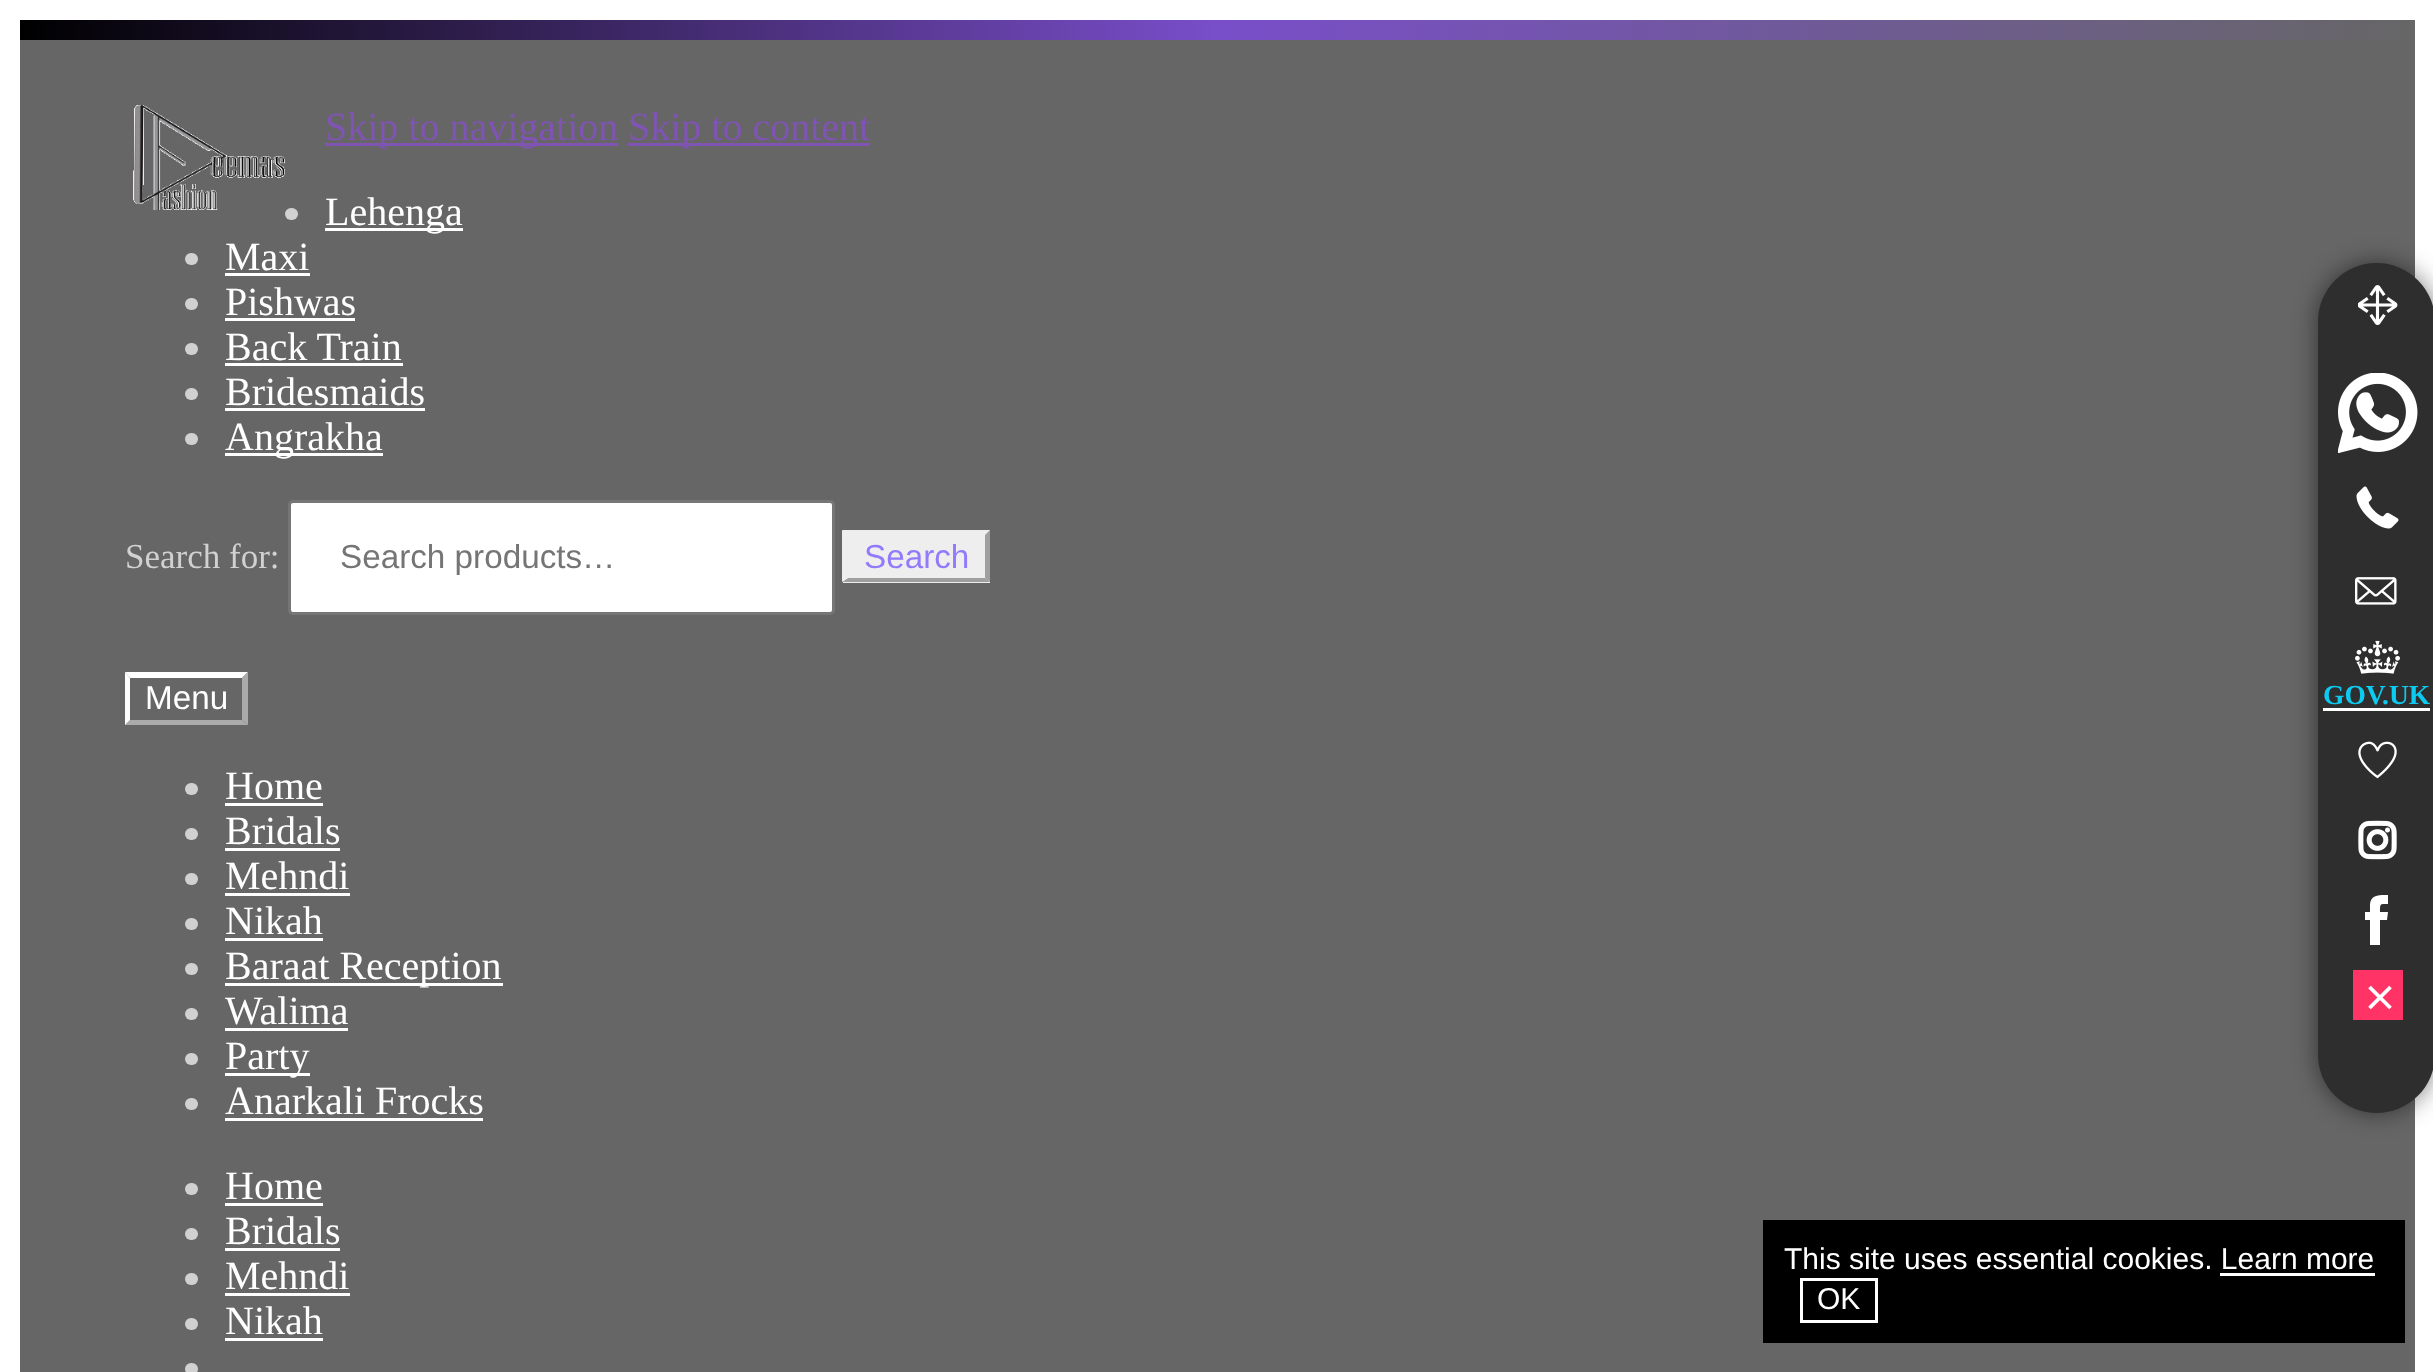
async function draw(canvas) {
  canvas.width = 2433
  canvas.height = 1372
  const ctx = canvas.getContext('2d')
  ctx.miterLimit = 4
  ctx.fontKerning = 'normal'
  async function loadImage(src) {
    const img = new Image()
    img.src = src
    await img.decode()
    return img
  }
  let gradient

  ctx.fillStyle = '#fff'
  ctx.fillRect(0, 0, 2433, 1372)
  gradient = ctx.createLinearGradient(20, 30, 2415, 30)
  gradient.addColorStop(0, '#000')
  gradient.addColorStop(0.5, '#794ec9')
  gradient.addColorStop(1, '#666')
  ctx.fillStyle = gradient
  ctx.fillRect(20, 20, 2395, 20)
  ctx.fillStyle = '#666'
  ctx.fillRect(20, 40, 2395, 1332)
  ctx.drawImage(await loadImage('image0.png'), 133, 105, 152, 105)
  ctx.fillStyle = '#7f54b3'
  ctx.fillRect(325, 143, 293, 3)
  ctx.font = '40px Liberation Serif'
  ctx.fillText('Skip to navigation', 325, 140)
  ctx.fillRect(628, 143, 242, 3)
  ctx.fillText('Skip to content', 628, 140)
  ctx.fillStyle = '#d1d1d1'
  ctx.beginPath()
  ctx.roundRect(285, 208, 13, 12, 6)
  ctx.fill()
  ctx.fillStyle = '#fff'
  ctx.fillRect(325, 228, 138, 3)
  ctx.fillText('Lehenga', 325, 225)
  ctx.fillStyle = '#d1d1d1'
  ctx.beginPath()
  ctx.roundRect(185, 253, 13, 12, 6)
  ctx.fill()
  ctx.fillStyle = '#fff'
  ctx.fillText('Maxi', 225, 270)
  ctx.fillRect(225, 273, 85, 3)
  ctx.fillStyle = '#d1d1d1'
  ctx.beginPath()
  ctx.roundRect(185, 298, 13, 12, 6)
  ctx.fill()
  ctx.fillStyle = '#fff'
  ctx.fillText('Pishwas', 225, 315)
  ctx.fillRect(225, 318, 130, 3)
  ctx.fillStyle = '#d1d1d1'
  ctx.beginPath()
  ctx.roundRect(185, 343, 13, 12, 6)
  ctx.fill()
  ctx.fillStyle = '#fff'
  ctx.fillText('Back Train', 225, 360)
  ctx.fillRect(225, 363, 178, 3)
  ctx.fillStyle = '#d1d1d1'
  ctx.beginPath()
  ctx.roundRect(185, 388, 13, 12, 6)
  ctx.fill()
  ctx.fillStyle = '#fff'
  ctx.fillText('Bridesmaids', 225, 405)
  ctx.fillRect(225, 408, 200, 3)
  ctx.fillStyle = '#d1d1d1'
  ctx.beginPath()
  ctx.roundRect(185, 433, 13, 12, 6)
  ctx.fill()
  ctx.fillStyle = '#fff'
  ctx.fillRect(225, 453, 158, 3)
  ctx.fillText('Angrakha', 225, 450)
  ctx.font = '35px Liberation Serif'
  ctx.fillStyle = '#d1d1d1'
  ctx.fillText('Search for:', 125, 568)
  ctx.fillStyle = '#fff'
  ctx.beginPath()
  ctx.roundRect(289.5, 501.5, 544, 112, 3.5)
  ctx.fill()
  ctx.strokeStyle = '#767676'
  ctx.lineWidth = 3
  ctx.stroke()
  ctx.font = '33.25px Liberation Sans'
  ctx.fillStyle = '#757575'
  ctx.fillText('Search products…', 340, 568)
  ctx.fillStyle = '#eee'
  ctx.fillRect(843, 530, 147, 53)
  ctx.beginPath()
  ctx.moveTo(842, 530)
  ctx.lineTo(990, 530)
  ctx.lineTo(985, 535)
  ctx.lineTo(848, 535)
  ctx.closePath()
  ctx.fill()
  ctx.fillStyle = '#9f9f9f'
  ctx.beginPath()
  ctx.moveTo(990, 530)
  ctx.lineTo(990, 582)
  ctx.lineTo(985, 578)
  ctx.lineTo(985, 535)
  ctx.closePath()
  ctx.fill()
  ctx.beginPath()
  ctx.moveTo(990, 582)
  ctx.lineTo(842, 582)
  ctx.lineTo(848, 578)
  ctx.lineTo(985, 578)
  ctx.closePath()
  ctx.fill()
  ctx.fillStyle = '#eee'
  ctx.beginPath()
  ctx.moveTo(842, 582)
  ctx.lineTo(842, 530)
  ctx.lineTo(848, 535)
  ctx.lineTo(848, 578)
  ctx.closePath()
  ctx.fill()
  ctx.fillStyle = '#937afc'
  ctx.fillText('Search', 864, 568)
  ctx.fillStyle = '#fff'
  ctx.beginPath()
  ctx.moveTo(125, 672)
  ctx.lineTo(248, 672)
  ctx.lineTo(242, 678)
  ctx.lineTo(130, 678)
  ctx.closePath()
  ctx.fill()
  ctx.fillStyle = '#aaa'
  ctx.beginPath()
  ctx.moveTo(248, 672)
  ctx.lineTo(248, 725)
  ctx.lineTo(242, 720)
  ctx.lineTo(242, 678)
  ctx.closePath()
  ctx.fill()
  ctx.beginPath()
  ctx.moveTo(248, 725)
  ctx.lineTo(125, 725)
  ctx.lineTo(130, 720)
  ctx.lineTo(242, 720)
  ctx.closePath()
  ctx.fill()
  ctx.fillStyle = '#fff'
  ctx.beginPath()
  ctx.moveTo(125, 725)
  ctx.lineTo(125, 672)
  ctx.lineTo(130, 678)
  ctx.lineTo(130, 720)
  ctx.closePath()
  ctx.fill()
  ctx.fillText('Menu', 145, 709)
  ctx.fillStyle = '#d1d1d1'
  ctx.beginPath()
  ctx.roundRect(185, 783, 13, 12, 6)
  ctx.fill()
  ctx.font = '40px Liberation Serif'
  ctx.fillStyle = '#fff'
  ctx.fillText('Home', 225, 799)
  ctx.fillRect(225, 803, 98, 3)
  ctx.fillStyle = '#d1d1d1'
  ctx.beginPath()
  ctx.roundRect(185, 828, 13, 12, 6)
  ctx.fill()
  ctx.fillStyle = '#fff'
  ctx.fillText('Bridals', 225, 844)
  ctx.fillRect(225, 848, 115, 3)
  ctx.fillStyle = '#d1d1d1'
  ctx.beginPath()
  ctx.roundRect(185, 873, 13, 12, 6)
  ctx.fill()
  ctx.fillStyle = '#fff'
  ctx.fillText('Mehndi', 225, 889)
  ctx.fillRect(225, 893, 125, 3)
  ctx.fillStyle = '#d1d1d1'
  ctx.beginPath()
  ctx.roundRect(185, 918, 13, 12, 6)
  ctx.fill()
  ctx.fillStyle = '#fff'
  ctx.fillText('Nikah', 225, 934)
  ctx.fillRect(225, 938, 98, 3)
  ctx.fillStyle = '#d1d1d1'
  ctx.beginPath()
  ctx.roundRect(185, 963, 13, 12, 6)
  ctx.fill()
  ctx.fillStyle = '#fff'
  ctx.fillRect(225, 983, 278, 3)
  ctx.fillText('Baraat Reception', 225, 979)
  ctx.fillStyle = '#d1d1d1'
  ctx.beginPath()
  ctx.roundRect(185, 1008, 13, 12, 6)
  ctx.fill()
  ctx.fillStyle = '#fff'
  ctx.fillText('Walima', 225, 1024)
  ctx.fillRect(225, 1028, 123, 3)
  ctx.fillStyle = '#d1d1d1'
  ctx.beginPath()
  ctx.roundRect(185, 1053, 13, 12, 6)
  ctx.fill()
  ctx.fillStyle = '#fff'
  ctx.fillRect(225, 1073, 85, 3)
  ctx.fillText('Party', 225, 1069)
  ctx.fillStyle = '#d1d1d1'
  ctx.beginPath()
  ctx.roundRect(185, 1098, 13, 12, 6)
  ctx.fill()
  ctx.fillStyle = '#fff'
  ctx.fillText('Anarkali Frocks', 225, 1114)
  ctx.fillRect(225, 1118, 258, 3)
  ctx.fillStyle = '#d1d1d1'
  ctx.beginPath()
  ctx.roundRect(185, 1183, 13, 12, 6)
  ctx.fill()
  ctx.fillStyle = '#fff'
  ctx.fillText('Home', 225, 1199)
  ctx.fillRect(225, 1203, 98, 3)
  ctx.fillStyle = '#d1d1d1'
  ctx.beginPath()
  ctx.roundRect(185, 1228, 13, 12, 6)
  ctx.fill()
  ctx.fillStyle = '#fff'
  ctx.fillText('Bridals', 225, 1244)
  ctx.fillRect(225, 1248, 115, 3)
  ctx.fillStyle = '#d1d1d1'
  ctx.beginPath()
  ctx.roundRect(185, 1273, 13, 12, 6)
  ctx.fill()
  ctx.fillStyle = '#fff'
  ctx.fillText('Mehndi', 225, 1289)
  ctx.fillRect(225, 1293, 125, 3)
  ctx.fillStyle = '#d1d1d1'
  ctx.beginPath()
  ctx.roundRect(185, 1318, 13, 12, 6)
  ctx.fill()
  ctx.fillStyle = '#fff'
  ctx.fillText('Nikah', 225, 1334)
  ctx.fillRect(225, 1338, 98, 3)
  ctx.fillStyle = '#d1d1d1'
  ctx.beginPath()
  ctx.roundRect(185, 1363, 13, 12, 6)
  ctx.fill()
  ctx.fillStyle = '#00000080'
  ctx.filter = 'blur(12.5px)'
  ctx.beginPath()
  ctx.roundRect(2318, 263, 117, 850, 58.5)
  ctx.fill()
  ctx.filter = 'none'
  ctx.fillStyle = '#2e2e2e'
  ctx.beginPath()
  ctx.roundRect(2318, 263, 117, 850, 58.5)
  ctx.fill()
  ctx.drawImage(await loadImage('image1.png'), 2358, 285, 40, 40)
  ctx.drawImage(await loadImage('image2.png'), 2338, 373, 80, 80)
  ctx.drawImage(await loadImage('image3.png'), 2356, 486, 43, 43)
  ctx.drawImage(await loadImage('image4.png'), 2355, 577, 42, 28)
  ctx.drawImage(await loadImage('image5.png'), 2355, 640, 45, 34)
  ctx.font = 'bold 27.5px Liberation Serif'
  ctx.fillStyle = '#0dcaf0'
  ctx.fillText('GOV.UK', 2323, 704)
  ctx.fillStyle = '#fff'
  ctx.fillRect(2323, 708, 107, 3)
  ctx.drawImage(await loadImage('image6.png'), 2358, 741, 39, 38)
  ctx.drawImage(await loadImage('image7.png'), 2358, 820, 39, 40)
  ctx.beginPath()
  ctx.moveTo(2370, 905)
  ctx.lineTo(2370, 912)
  ctx.lineTo(2365, 912)
  ctx.lineTo(2365, 920)
  ctx.lineTo(2370, 920)
  ctx.lineTo(2370, 945)
  ctx.lineTo(2380, 945)
  ctx.lineTo(2380, 920)
  ctx.lineTo(2387, 920)
  ctx.lineTo(2388, 912)
  ctx.lineTo(2380, 912)
  ctx.bezierCurveTo(2380, 903, 2380, 904, 2388, 904)
  ctx.lineTo(2388, 895)
  ctx.bezierCurveTo(2381, 895, 2370, 894, 2370, 905)
  ctx.closePath()
  ctx.fill()
  ctx.fillStyle = '#f36'
  ctx.fillRect(2353, 970, 50, 50)
  ctx.beginPath()
  ctx.moveTo(2369.5, 987)
  ctx.lineTo(2390.5, 1008)
  ctx.moveTo(2369.5, 1008)
  ctx.lineTo(2390.5, 987)
  ctx.strokeStyle = '#fff'
  ctx.lineWidth = 3.8
  ctx.stroke()
  ctx.fillStyle = '#000'
  ctx.fillRect(1763, 1220, 642, 123)
  ctx.font = '30px Liberation Sans'
  ctx.fillStyle = '#fff'
  ctx.fillText('This site uses essential cookies. Learn more', 1784, 1269)
  ctx.fillRect(2220, 1273, 155, 3)
  ctx.lineWidth = 3
  ctx.strokeRect(1801.5, 1279.5, 75, 42)
  ctx.fillText('OK', 1817, 1309)
}

draw(document.querySelector('canvas'))
